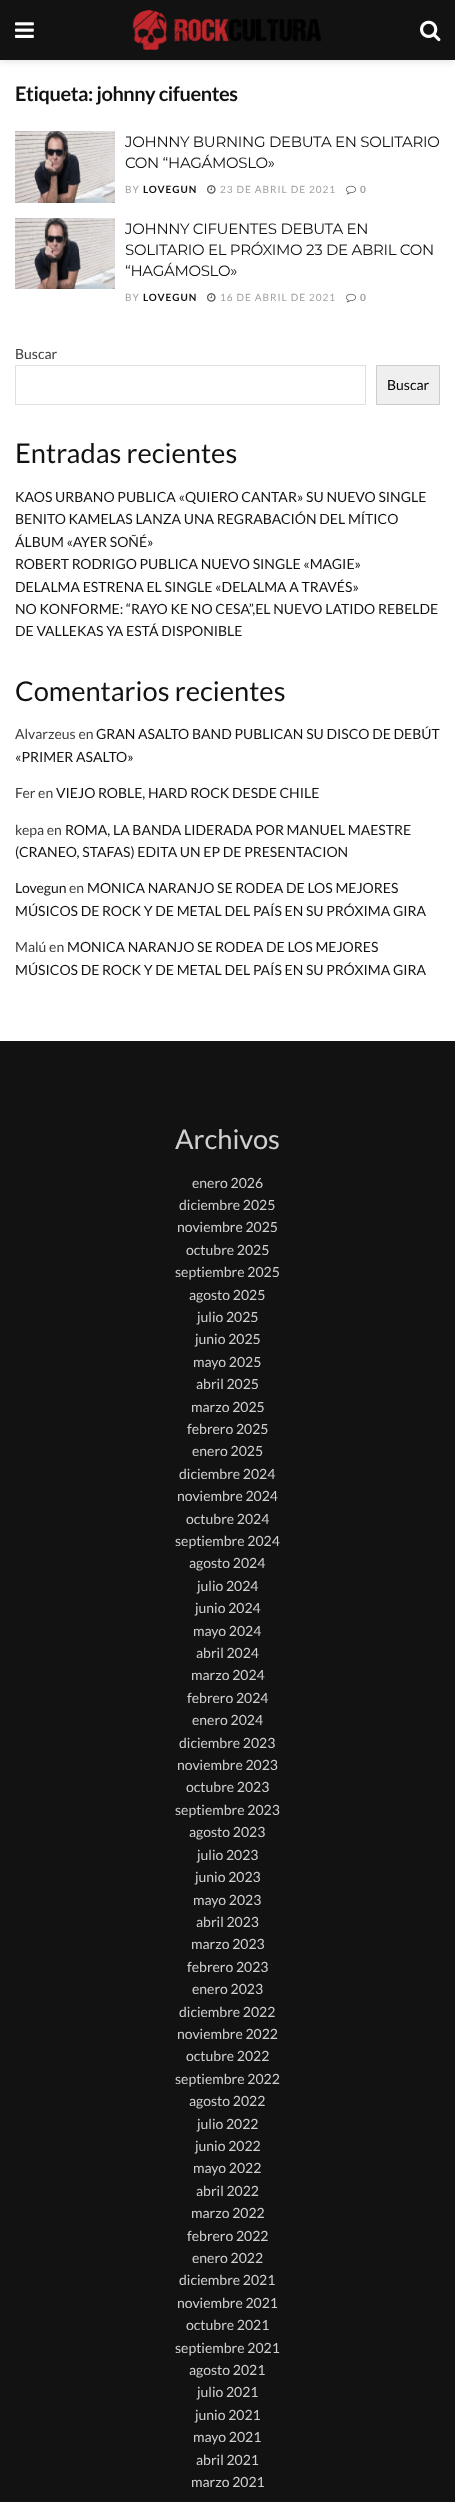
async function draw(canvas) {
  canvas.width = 455
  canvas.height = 2502
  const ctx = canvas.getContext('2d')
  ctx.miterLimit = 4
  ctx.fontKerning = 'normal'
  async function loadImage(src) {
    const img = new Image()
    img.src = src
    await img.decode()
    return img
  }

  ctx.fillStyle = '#fff'
  ctx.fillRect(0, 0, 455, 2502)
  ctx.fillStyle = '#0000001a'
  ctx.filter = 'blur(3px)'
  ctx.beginPath()
  ctx.rect(0, 2, 455, 60)
  ctx.fill()
  ctx.filter = 'none'
  ctx.fillStyle = '#121212'
  ctx.fillRect(0, 0, 455, 60)
  ctx.drawImage(await loadImage('image0.png'), 15, 22, 19, 16)
  ctx.drawImage(await loadImage('image1.png'), 132, 10, 189, 40)
  ctx.drawImage(await loadImage('image2.png'), 420, 20, 21, 22)
  ctx.letterSpacing = '-0.4px'
  ctx.font = 'bold 20px Lato'
  ctx.fillText('Etiqueta: johnny cifuentes', 15, 101)
  ctx.drawImage(await loadImage('image3.png'), 15, 131, 100, 72)
  ctx.letterSpacing = '-0.3px'
  ctx.font = '15px Montserrat'
  ctx.fillText('JOHNNY BURNING DEBUTA EN SOLITARIO', 125, 147)
  ctx.fillText('CON “HAGÁMOSLO»', 125, 168)
  ctx.letterSpacing = '1px'
  ctx.font = '10px Lato'
  ctx.fillStyle = '#a0a0a0'
  ctx.fillText('BY', 125, 193)
  ctx.font = 'bold 10px Lato'
  ctx.fillStyle = '#121212'
  ctx.fillText('LOVEGUN', 143, 193)
  ctx.drawImage(await loadImage('image4.png'), 207, 185, 9, 9)
  ctx.font = '10px Lato'
  ctx.fillStyle = '#a0a0a0'
  ctx.fillText('23 DE ABRIL DE 2021', 220, 193)
  ctx.drawImage(await loadImage('image5.png'), 346, 185, 10, 10)
  ctx.font = 'bold 10px Lato'
  ctx.fillText('0', 360, 193)
  ctx.drawImage(await loadImage('image6.png'), 15, 218, 100, 71)
  ctx.letterSpacing = '-0.3px'
  ctx.font = '15px Montserrat'
  ctx.fillStyle = '#121212'
  ctx.fillText('JOHNNY CIFUENTES DEBUTA EN', 125, 234)
  ctx.fillText('SOLITARIO EL PRÓXIMO 23 DE ABRIL CON', 125, 255)
  ctx.fillText('“HAGÁMOSLO»', 125, 276)
  ctx.letterSpacing = '1px'
  ctx.font = '10px Lato'
  ctx.fillStyle = '#a0a0a0'
  ctx.fillText('BY', 125, 301)
  ctx.font = 'bold 10px Lato'
  ctx.fillStyle = '#121212'
  ctx.fillText('LOVEGUN', 143, 301)
  ctx.drawImage(await loadImage('image4.png'), 207, 293, 9, 9)
  ctx.font = '10px Lato'
  ctx.fillStyle = '#a0a0a0'
  ctx.fillText('16 DE ABRIL DE 2021', 220, 301)
  ctx.drawImage(await loadImage('image5.png'), 346, 293, 10, 10)
  ctx.font = 'bold 10px Lato'
  ctx.fillText('0', 360, 301)
  ctx.letterSpacing = '0px'
  ctx.font = '14px Lato'
  ctx.fillStyle = '#3d3d3d'
  ctx.fillText('Buscar', 15, 359)
  ctx.strokeStyle = '#e0e0e0'
  ctx.strokeRect(15.5, 365.5, 350, 39)
  ctx.fillStyle = '#efefef'
  ctx.beginPath()
  ctx.rect(376.5, 365.5, 63, 39)
  ctx.fill()
  ctx.strokeStyle = '#ccc'
  ctx.stroke()
  ctx.fillStyle = '#000'
  ctx.fillText('Buscar', 387, 390)
  ctx.font = '27.25px Lato'
  ctx.fillStyle = '#121212'
  ctx.fillText('Entradas recientes', 15, 463)
  ctx.font = '14px Lato'
  ctx.fillText('KAOS URBANO PUBLICA «QUIERO CANTAR» SU NUEVO SINGLE', 15, 502)
  ctx.fillText('BENITO KAMELAS LANZA UNA REGRABACIÓN DEL MÍTICO', 15, 524)
  ctx.fillText('ÁLBUM «AYER SOÑÉ»', 15, 547)
  ctx.fillText('ROBERT RODRIGO PUBLICA NUEVO SINGLE «MAGIE»', 15, 569)
  ctx.fillText('DELALMA ESTRENA EL SINGLE «DELALMA A TRAVÉS»', 15, 592)
  ctx.fillText('NO KONFORME: “RAYO KE NO CESA”,EL NUEVO LATIDO REBELDE', 15, 614)
  ctx.fillText('DE VALLEKAS YA ESTÁ DISPONIBLE', 15, 636)
  ctx.font = '27.25px Lato'
  ctx.fillText('Comentarios recientes', 15, 701)
  ctx.font = '14px Lato'
  ctx.fillStyle = '#3d3d3d'
  ctx.fillText('Alvarzeus en', 15, 739)
  ctx.fillStyle = '#121212'
  ctx.fillText('GRAN ASALTO BAND PUBLICAN SU DISCO DE DEBÚT', 96, 739)
  ctx.fillText('«PRIMER ASALTO»', 15, 762)
  ctx.fillStyle = '#3d3d3d'
  ctx.fillText('Fer en', 15, 798)
  ctx.fillStyle = '#121212'
  ctx.fillText('VIEJO ROBLE, HARD ROCK DESDE CHILE', 56, 798)
  ctx.fillStyle = '#3d3d3d'
  ctx.fillText('kepa en', 15, 835)
  ctx.fillStyle = '#121212'
  ctx.fillText('ROMA, LA BANDA LIDERADA POR MANUEL MAESTRE', 65, 835)
  ctx.fillText('(CRANEO, STAFAS) EDITA UN EP DE PRESENTACION', 15, 857)
  ctx.fillText('Lovegun', 15, 893)
  ctx.fillStyle = '#3d3d3d'
  ctx.fillText('en', 69, 893)
  ctx.fillStyle = '#121212'
  ctx.fillText('MONICA NARANJO SE RODEA DE LOS MEJORES', 87, 893)
  ctx.fillText('MÚSICOS DE ROCK Y DE METAL DEL PAÍS EN SU PRÓXIMA GIRA', 15, 916)
  ctx.fillStyle = '#3d3d3d'
  ctx.fillText('Malú en', 15, 952)
  ctx.fillStyle = '#121212'
  ctx.fillText('MONICA NARANJO SE RODEA DE LOS MEJORES', 67, 952)
  ctx.fillText('MÚSICOS DE ROCK Y DE METAL DEL PAÍS EN SU PRÓXIMA GIRA', 15, 975)
  ctx.fillRect(0, 1041, 455, 1461)
  ctx.font = '27.25px Lato'
  ctx.fillStyle = '#d0d0d0'
  ctx.fillText('Archivos', 175, 1149)
  ctx.font = '14px Lato'
  ctx.fillText('enero 2026', 192, 1188)
  ctx.fillText('diciembre 2025', 179, 1210)
  ctx.fillText('noviembre 2025', 177, 1232)
  ctx.fillText('octubre 2025', 186, 1255)
  ctx.fillText('septiembre 2025', 175, 1277)
  ctx.fillText('agosto 2025', 189, 1300)
  ctx.fillText('julio 2025', 197, 1322)
  ctx.fillText('junio 2025', 195, 1344)
  ctx.fillText('mayo 2025', 193, 1367)
  ctx.fillText('abril 2025', 196, 1389)
  ctx.fillText('marzo 2025', 191, 1412)
  ctx.fillText('febrero 2025', 187, 1434)
  ctx.fillText('enero 2025', 192, 1456)
  ctx.fillText('diciembre 2024', 179, 1479)
  ctx.fillText('noviembre 2024', 177, 1501)
  ctx.fillText('octubre 2024', 186, 1524)
  ctx.fillText('septiembre 2024', 175, 1546)
  ctx.fillText('agosto 2024', 189, 1568)
  ctx.fillText('julio 2024', 197, 1591)
  ctx.fillText('junio 2024', 195, 1613)
  ctx.fillText('mayo 2024', 193, 1636)
  ctx.fillText('abril 2024', 196, 1658)
  ctx.fillText('marzo 2024', 191, 1680)
  ctx.fillText('febrero 2024', 187, 1703)
  ctx.fillText('enero 2024', 192, 1725)
  ctx.fillText('diciembre 2023', 179, 1748)
  ctx.fillText('noviembre 2023', 177, 1770)
  ctx.fillText('octubre 2023', 186, 1792)
  ctx.fillText('septiembre 2023', 175, 1815)
  ctx.fillText('agosto 2023', 189, 1837)
  ctx.fillText('julio 2023', 197, 1860)
  ctx.fillText('junio 2023', 195, 1882)
  ctx.fillText('mayo 2023', 193, 1905)
  ctx.fillText('abril 2023', 196, 1927)
  ctx.fillText('marzo 2023', 191, 1949)
  ctx.fillText('febrero 2023', 187, 1972)
  ctx.fillText('enero 2023', 192, 1994)
  ctx.fillText('diciembre 2022', 179, 2017)
  ctx.fillText('noviembre 2022', 177, 2039)
  ctx.fillText('octubre 2022', 186, 2061)
  ctx.fillText('septiembre 2022', 175, 2084)
  ctx.fillText('agosto 2022', 189, 2106)
  ctx.fillText('julio 2022', 197, 2129)
  ctx.fillText('junio 2022', 195, 2151)
  ctx.fillText('mayo 2022', 193, 2173)
  ctx.fillText('abril 2022', 196, 2196)
  ctx.fillText('marzo 2022', 191, 2218)
  ctx.fillText('febrero 2022', 187, 2241)
  ctx.fillText('enero 2022', 192, 2263)
  ctx.fillText('diciembre 2021', 179, 2285)
  ctx.fillText('noviembre 2021', 177, 2308)
  ctx.fillText('octubre 2021', 186, 2330)
  ctx.fillText('septiembre 2021', 175, 2353)
  ctx.fillText('agosto 2021', 189, 2375)
  ctx.fillText('julio 2021', 197, 2397)
  ctx.fillText('junio 2021', 195, 2420)
  ctx.fillText('mayo 2021', 193, 2442)
  ctx.fillText('abril 2021', 196, 2465)
  ctx.fillText('marzo 2021', 191, 2487)
}

draw(document.querySelector('canvas'))
